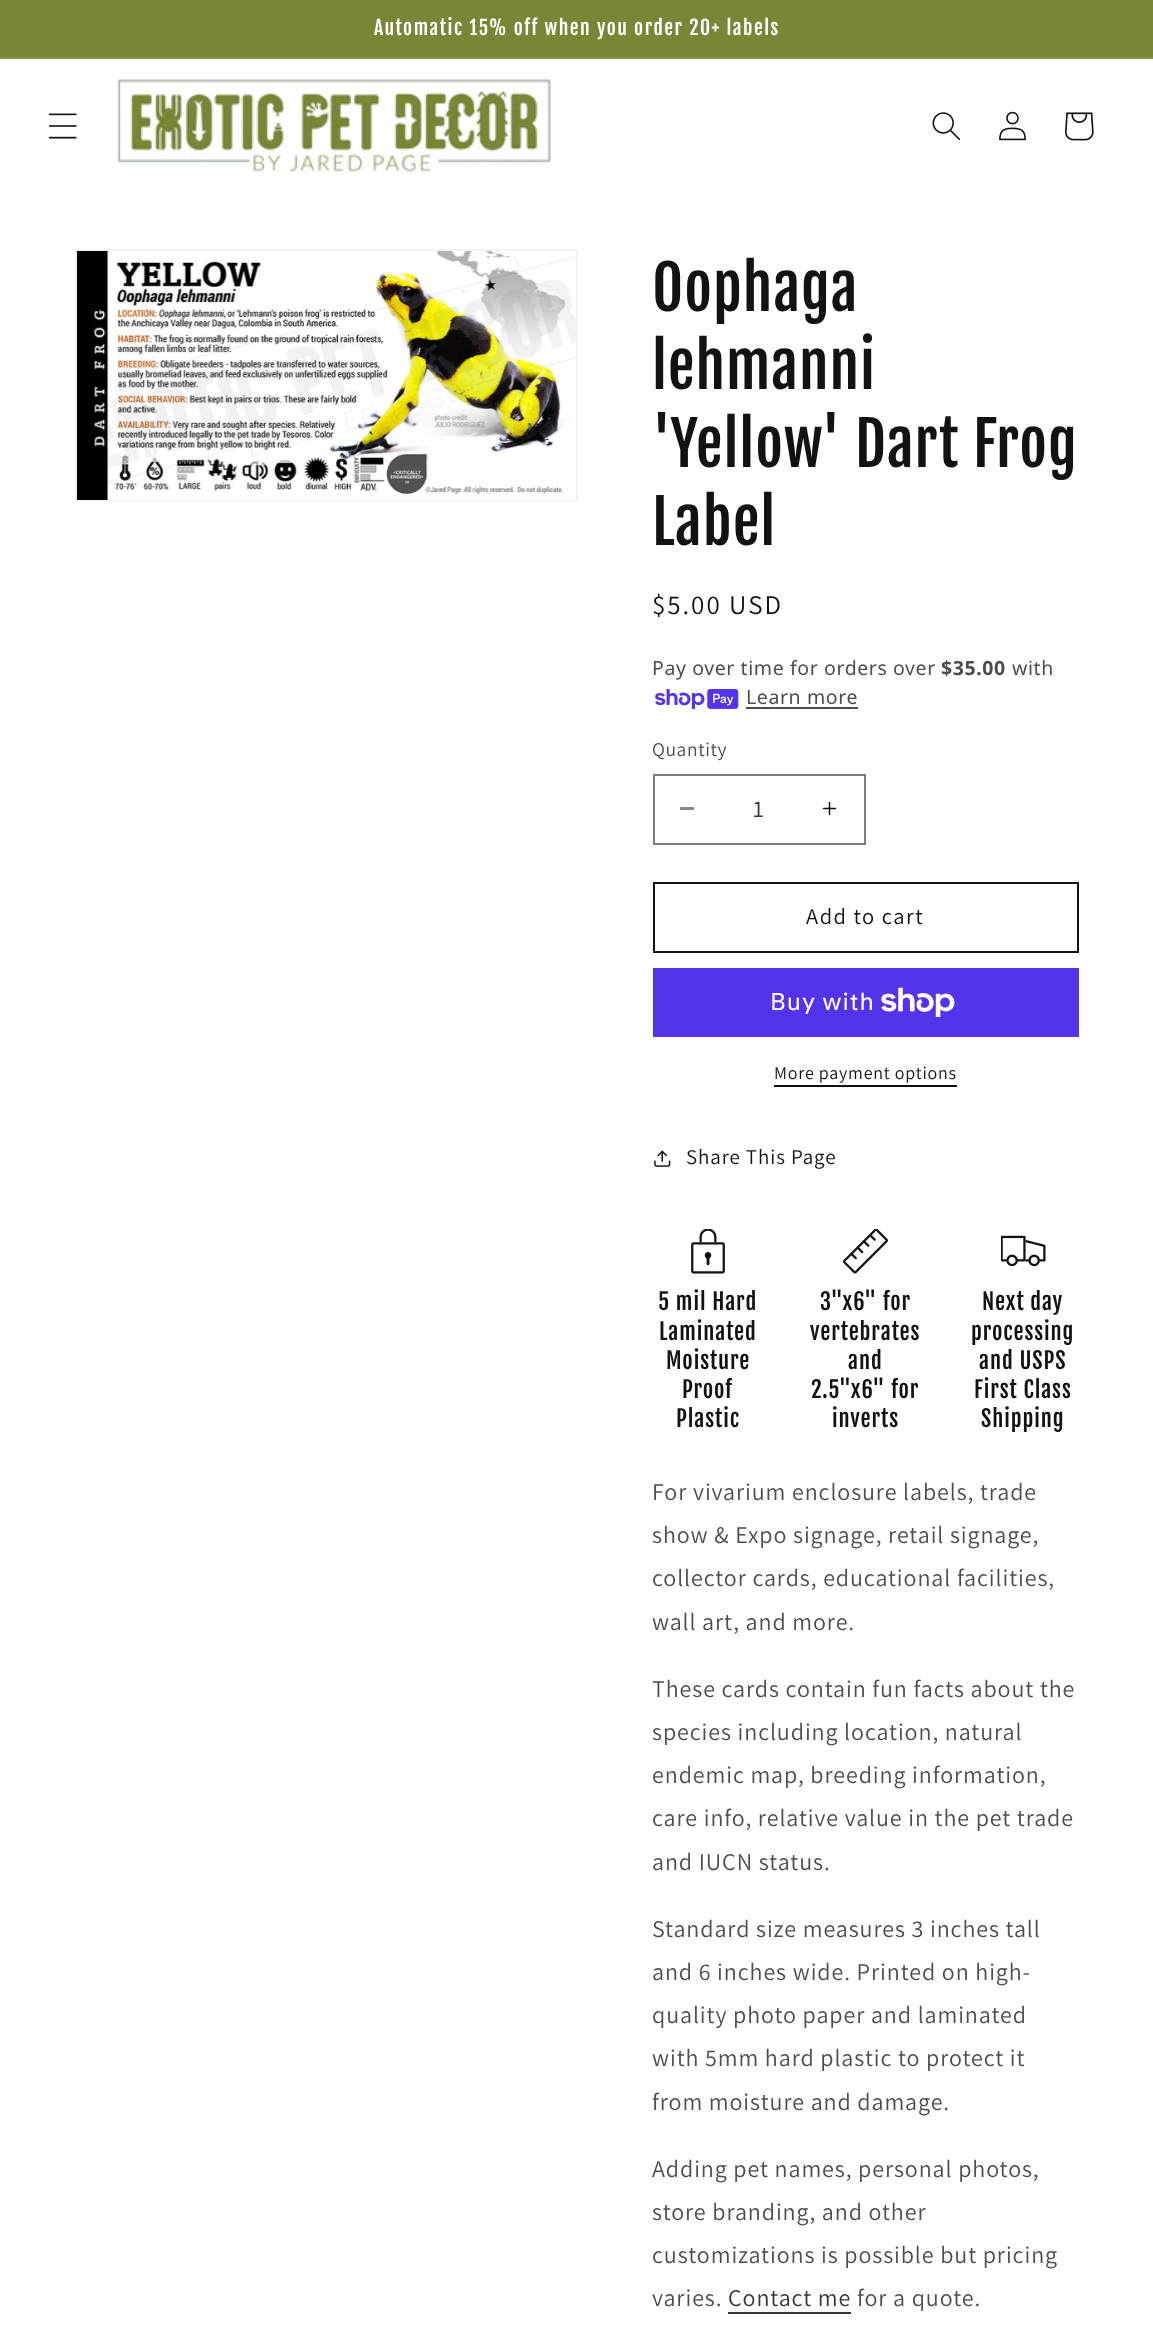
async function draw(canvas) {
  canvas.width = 1153
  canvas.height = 2349
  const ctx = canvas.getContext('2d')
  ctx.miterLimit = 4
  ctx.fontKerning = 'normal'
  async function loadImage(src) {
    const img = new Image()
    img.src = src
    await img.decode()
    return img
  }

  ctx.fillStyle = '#fff'
  ctx.fillRect(0, 0, 1153, 2349)
  ctx.fillStyle = '#788736'
  ctx.fillRect(0, 0, 1153, 57)
  ctx.fillStyle = '#839146'
  ctx.fillRect(0, 57, 1153, 2)
  ctx.letterSpacing = '1.5px'
  ctx.font = '19.5px Fjalla One'
  ctx.fillStyle = '#fff'
  ctx.fillText('Automatic 15% off when you order 20+ labels', 374, 35)
  ctx.drawImage(await loadImage('image0.png'), 48, 113, 29, 26)
  ctx.drawImage(await loadImage('image1.png'), 116, 79, 436, 95)
  ctx.drawImage(await loadImage('image2.png'), 932, 112, 28, 28)
  ctx.drawImage(await loadImage('image3.png'), 999, 111, 27, 30)
  ctx.drawImage(await loadImage('image4.png'), 1065, 112, 29, 29)
  ctx.strokeStyle = '#f3f3f3'
  ctx.lineWidth = 2
  ctx.strokeRect(76, 250, 501, 250)
  ctx.drawImage(await loadImage('image5.png'), 77, 251, 499, 249)
  ctx.letterSpacing = '0.9px'
  ctx.font = '60px Fjalla One'
  ctx.fillStyle = '#121212'
  ctx.fillText('Oophaga', 652, 311)
  ctx.fillText('lehmanni', 652, 389)
  ctx.fillText('\'Yellow\' Dart Frog', 652, 467)
  ctx.fillText('Label', 652, 545)
  ctx.letterSpacing = '2px'
  ctx.font = '27px Assistant'
  ctx.fillText('$5.00 USD', 652, 614)
  ctx.letterSpacing = '0.6px'
  ctx.font = '19.5px Noto Sans'
  ctx.fillStyle = '#4d4d4d'
  ctx.fillText('Pay over time for orders over', 652, 675)
  ctx.font = 'bold 19.5px Noto Sans'
  ctx.fillText('$35.00', 941, 675)
  ctx.font = '19.5px Noto Sans'
  ctx.fillText('with', 1012, 675)
  ctx.drawImage(await loadImage('image6.png'), 655, 689, 84, 21)
  ctx.fillText('Learn more', 746, 704)
  ctx.fillRect(746, 707, 112, 2)
  ctx.font = '19.5px Assistant'
  ctx.fillText('Quantity', 652, 756)
  ctx.fillStyle = '#898989'
  ctx.fillRect(680, 807, 14, 3)
  ctx.drawImage(await loadImage('image7.png'), 822, 801, 15, 15)
  ctx.strokeStyle = '#7d7d7d'
  ctx.strokeRect(654, 775, 211, 69)
  ctx.letterSpacing = '0px'
  ctx.font = '24px Assistant'
  ctx.fillStyle = '#363636'
  ctx.fillText('1', 753, 817)
  ctx.strokeStyle = '#121212'
  ctx.strokeRect(654, 883, 424, 69)
  ctx.letterSpacing = '1.5px'
  ctx.font = '22.5px Assistant'
  ctx.fillStyle = '#121212'
  ctx.fillText('Add to cart', 806, 924)
  ctx.fillStyle = '#5433eb'
  ctx.fillRect(653, 968, 426, 69)
  ctx.letterSpacing = '0.9px'
  ctx.font = '24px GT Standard'
  ctx.fillStyle = '#fff'
  ctx.fillText('Buy with', 770, 1010)
  ctx.drawImage(await loadImage('image8.png'), 881, 987, 74, 30)
  ctx.letterSpacing = '0.75px'
  ctx.font = '18px Assistant'
  ctx.fillStyle = '#121212'
  ctx.fillText('More payment options', 774, 1079)
  ctx.fillRect(774, 1085, 183, 2)
  ctx.drawImage(await loadImage('image9.png'), 654, 1150, 17, 17)
  ctx.letterSpacing = '0.9px'
  ctx.font = '21px Assistant'
  ctx.fillText('Share This Page', 686, 1164)
  ctx.drawImage(await loadImage('image10.png'), 691, 1229, 34, 45)
  ctx.font = '22.5px Fjalla One'
  ctx.fillText('5 mil Hard', 658, 1310)
  ctx.fillText('Laminated', 659, 1340)
  ctx.fillText('Moisture', 666, 1369)
  ctx.fillText('Proof', 682, 1398)
  ctx.fillText('Plastic', 676, 1427)
  ctx.drawImage(await loadImage('image11.png'), 843, 1229, 45, 45)
  ctx.fillText('3"x6" for', 820, 1310)
  ctx.fillText('vertebrates', 810, 1340)
  ctx.fillText('and', 848, 1369)
  ctx.fillText('2.5"x6" for', 811, 1398)
  ctx.fillText('inverts', 832, 1427)
  ctx.drawImage(await loadImage('image12.png'), 1001, 1235, 45, 32)
  ctx.fillText('Next day', 982, 1310)
  ctx.fillText('processing', 971, 1340)
  ctx.fillText('and USPS', 979, 1369)
  ctx.fillText('First Class', 974, 1398)
  ctx.fillText('Shipping', 981, 1427)
  ctx.font = '24px Assistant'
  ctx.fillStyle = '#4d4d4d'
  ctx.fillText('For vivarium enclosure labels, trade', 652, 1500)
  ctx.fillText('show & Expo signage, retail signage,', 652, 1543)
  ctx.fillText('collector cards, educational facilities,', 652, 1586)
  ctx.fillText('wall art, and more.', 652, 1630)
  ctx.fillText('These cards contain fun facts about the', 652, 1697)
  ctx.fillText('species including location, natural', 652, 1740)
  ctx.fillText('endemic map, breeding information,', 652, 1783)
  ctx.fillText('care info, relative value in the pet trade', 652, 1826)
  ctx.fillText('and IUCN status.', 652, 1870)
  ctx.fillText('Standard size measures 3 inches tall', 652, 1937)
  ctx.fillText('and 6 inches wide. Printed on high-', 652, 1980)
  ctx.fillText('quality photo paper and laminated', 652, 2023)
  ctx.fillText('with 5mm hard plastic to protect it', 652, 2066)
  ctx.fillText('from moisture and damage.', 652, 2110)
  ctx.fillText('Adding pet names, personal photos,', 652, 2177)
  ctx.fillText('store branding, and other', 652, 2220)
  ctx.fillText('customizations is possible but pricing', 652, 2263)
  ctx.fillText('varies.', 652, 2306)
  ctx.fillStyle = '#363636'
  ctx.fillText('Contact me', 728, 2306)
  ctx.fillRect(728, 2312, 123, 2)
  ctx.fillStyle = '#4d4d4d'
  ctx.fillText('for a quote.', 857, 2306)
}

draw(document.querySelector('canvas'))
